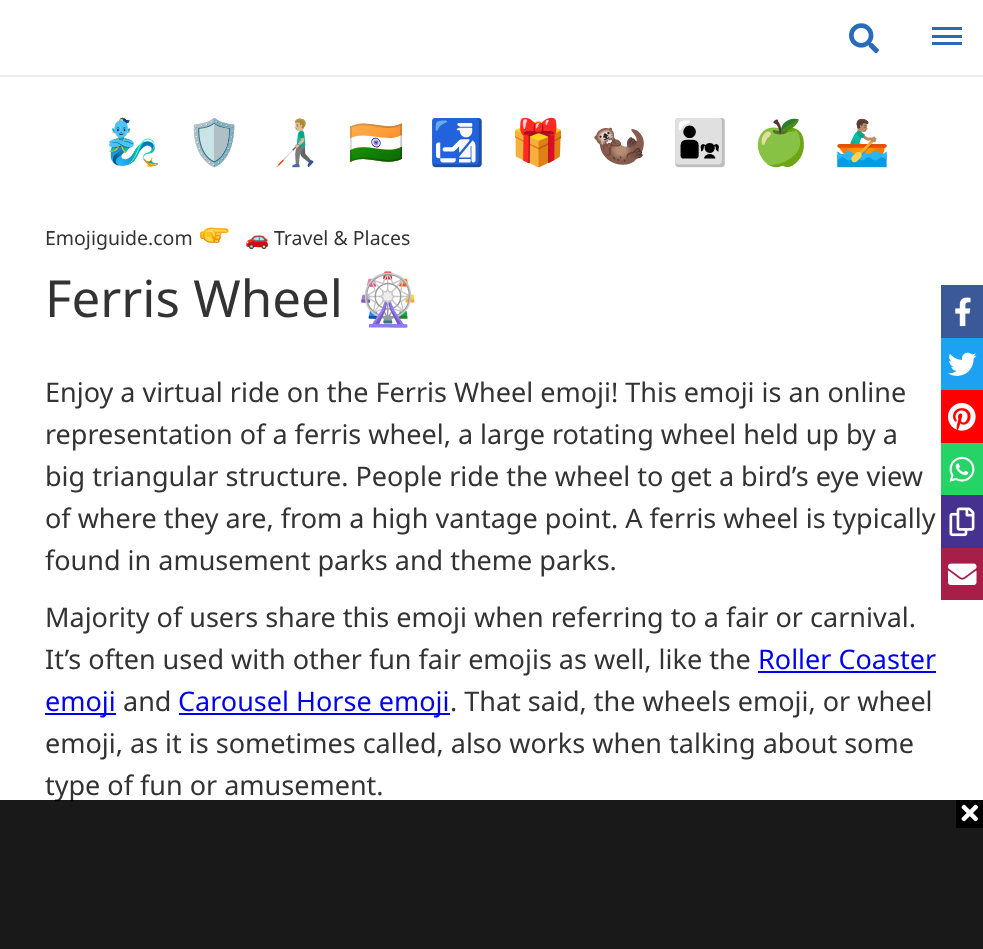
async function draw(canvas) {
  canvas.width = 983
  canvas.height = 949
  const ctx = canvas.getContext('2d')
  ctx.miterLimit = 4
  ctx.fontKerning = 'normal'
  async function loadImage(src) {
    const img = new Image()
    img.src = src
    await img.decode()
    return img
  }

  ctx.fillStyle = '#fff'
  ctx.fillRect(0, 0, 983, 949)
  ctx.fillStyle = '#ececec'
  ctx.fillRect(0, 75, 983, 2)
  ctx.drawImage(await loadImage('image0.png'), 849, 23, 30, 31)
  ctx.fillStyle = '#286cb9'
  ctx.fillRect(932, 27, 30, 3)
  ctx.fillRect(932, 35, 30, 3)
  ctx.fillRect(932, 42, 30, 3)
  ctx.font = '45px Noto Color Emoji'
  ctx.fillStyle = '#00e'
  ctx.fillText('🧞‍♂️', 105, 158)
  ctx.fillText('🛡️', 186, 158)
  ctx.fillText('👨🏼‍🦯', 267, 158)
  ctx.fillText('🇮🇳', 348, 158)
  ctx.fillText('🛃', 429, 158)
  ctx.fillText('🎁', 510, 158)
  ctx.fillText('🦦', 591, 158)
  ctx.fillText('👨‍👧', 672, 158)
  ctx.fillText('🍏', 753, 158)
  ctx.fillText('🚣🏽‍♂️', 834, 158)
  ctx.font = '19.5px Noto Sans'
  ctx.fillStyle = '#333'
  ctx.fillText('Emojiguide.com', 45, 245)
  ctx.drawImage(await loadImage('image1.png'), 200, 227, 29, 16)
  ctx.font = '19.5px Noto Color Emoji'
  ctx.fillText('🚗', 245, 245)
  ctx.font = '19.5px Noto Sans'
  ctx.fillText('Travel & Places', 274, 245)
  ctx.font = '51px Noto Sans'
  ctx.fillText('Ferris Wheel', 45, 317)
  ctx.font = '51px Noto Color Emoji'
  ctx.fillText('🎡', 356, 317)
  ctx.font = '27px Noto Sans'
  ctx.fillText('Enjoy a virtual ride on the Ferris Wheel emoji! This emoji is an online', 45, 402)
  ctx.fillText('representation of a ferris wheel, a large rotating wheel held up by a', 45, 444)
  ctx.fillText('big triangular structure. People ride the wheel to get a bird’s eye view', 45, 486)
  ctx.fillText('of where they are, from a high vantage point. A ferris wheel is typically', 45, 528)
  ctx.fillText('found in amusement parks and theme parks.', 45, 570)
  ctx.fillText('Majority of users share this emoji when referring to a fair or carnival.', 45, 627)
  ctx.fillText('It’s often used with other fun fair emojis as well, like the', 45, 669)
  ctx.fillStyle = '#00e'
  ctx.fillText('Roller Coaster', 758, 669)
  ctx.fillRect(758, 671, 178, 2)
  ctx.fillRect(45, 713, 71, 2)
  ctx.fillText('emoji', 45, 711)
  ctx.fillStyle = '#333'
  ctx.fillText('and', 123, 711)
  ctx.fillStyle = '#00e'
  ctx.fillRect(179, 713, 271, 2)
  ctx.fillText('Carousel Horse emoji', 178, 711)
  ctx.fillStyle = '#333'
  ctx.fillText('. That said, the wheels emoji, or wheel', 450, 711)
  ctx.fillText('emoji, as it is sometimes called, also works when talking about some', 45, 753)
  ctx.fillText('type of fun or amusement.', 45, 795)
  ctx.fillStyle = '#3b5998'
  ctx.fillRect(941, 285, 42, 53)
  ctx.drawImage(await loadImage('image2.png'), 955, 297, 16, 30)
  ctx.fillStyle = '#1da1f2'
  ctx.fillRect(941, 338, 42, 52)
  ctx.drawImage(await loadImage('image3.png'), 948, 352, 29, 24)
  ctx.fillStyle = '#f00'
  ctx.fillRect(941, 390, 42, 53)
  ctx.drawImage(await loadImage('image4.png'), 948, 403, 28, 28)
  ctx.fillStyle = '#25d366'
  ctx.fillRect(941, 443, 42, 52)
  ctx.drawImage(await loadImage('image5.png'), 949, 456, 26, 26)
  ctx.fillStyle = '#463190'
  ctx.fillRect(941, 495, 42, 53)
  ctx.drawImage(await loadImage('image6.png'), 949, 507, 26, 30)
  ctx.fillStyle = '#a71e48'
  ctx.fillRect(941, 548, 42, 52)
  ctx.drawImage(await loadImage('image7.png'), 948, 563, 29, 22)
  ctx.fillStyle = '#000000e6'
  ctx.fillRect(0, 800, 983, 149)
  ctx.fillStyle = '#000'
  ctx.fillRect(956, 800, 27, 28)
  ctx.drawImage(await loadImage('image8.png'), 961, 804, 17, 18)
}

draw(document.querySelector('canvas'))
